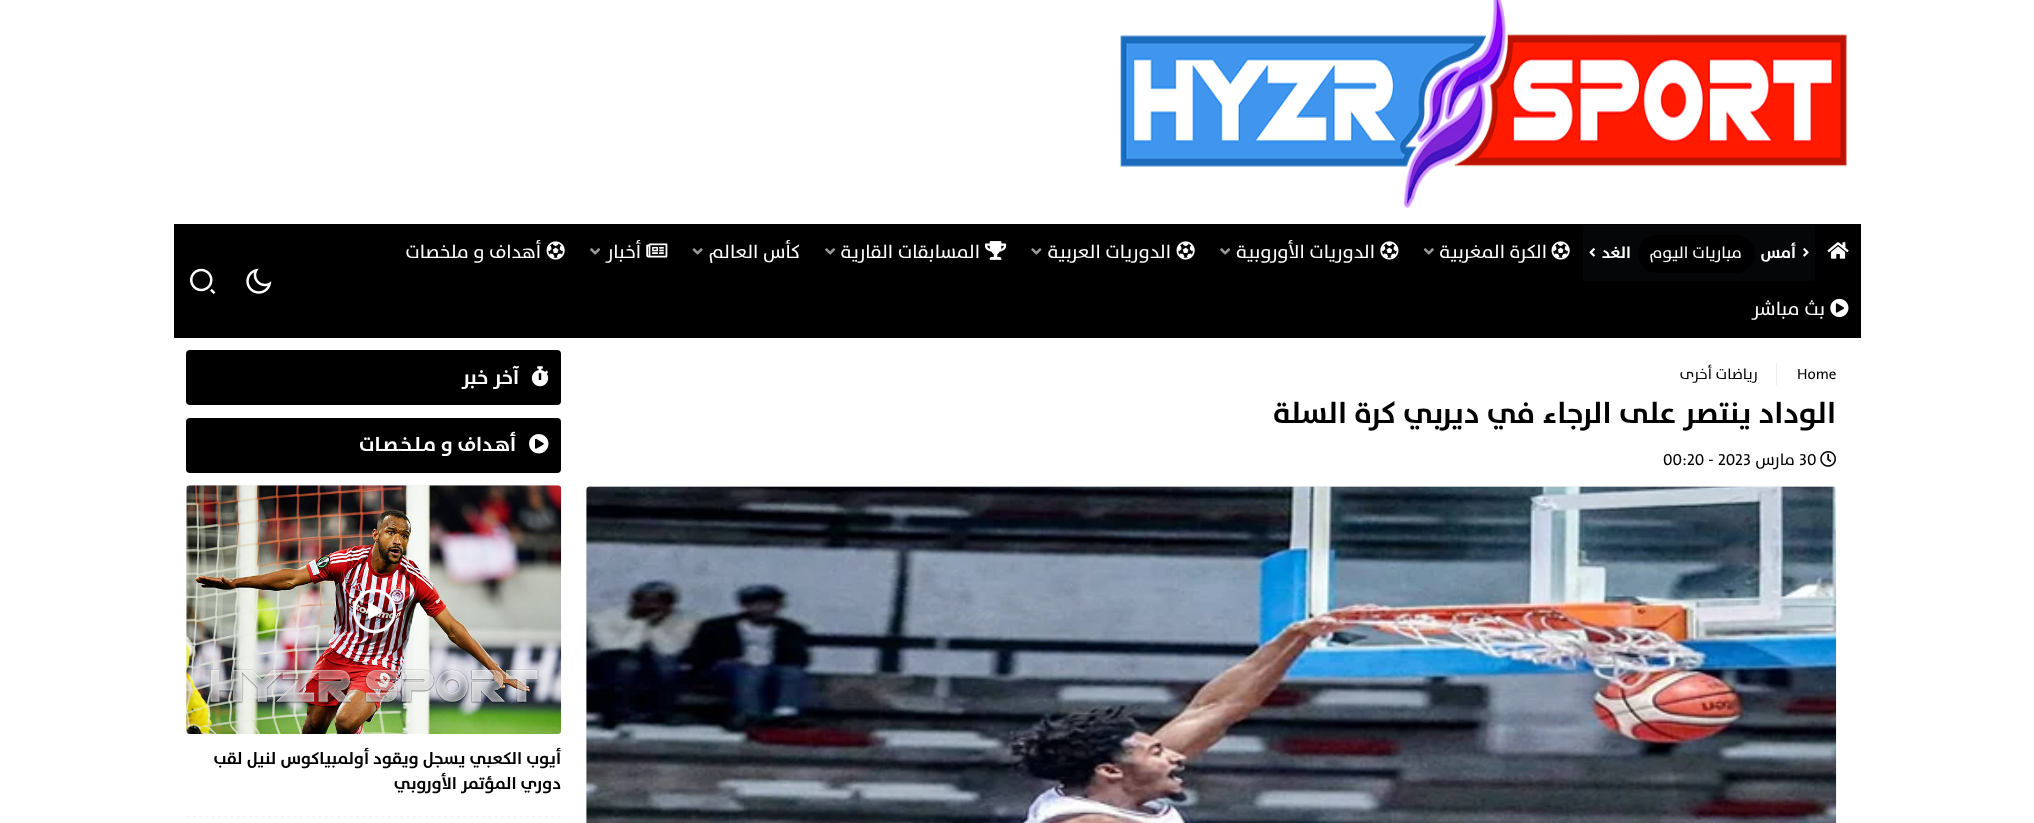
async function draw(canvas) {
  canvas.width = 2034
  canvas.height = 823
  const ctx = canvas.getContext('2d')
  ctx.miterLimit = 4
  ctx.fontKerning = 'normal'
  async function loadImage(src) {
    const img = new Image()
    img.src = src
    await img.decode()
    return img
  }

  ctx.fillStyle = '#fff'
  ctx.fillRect(0, 0, 2034, 823)
  ctx.drawImage(await loadImage('image0.png'), 1120, 0, 727, 208)
  ctx.fillStyle = '#000'
  ctx.fillRect(174, 224, 1687, 114)
  ctx.drawImage(await loadImage('image1.png'), 1827, 242, 22, 17)
  ctx.fillStyle = '#050607'
  ctx.fillRect(1583, 225, 232, 56)
  ctx.drawImage(await loadImage('image2.png'), 1803, 248, 6, 9)
  ctx.direction = 'rtl'
  ctx.font = 'bold 16.25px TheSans'
  ctx.fillStyle = '#fff'
  ctx.fillText('أمس', 1796, 258)
  ctx.fillStyle = '#000'
  ctx.beginPath()
  ctx.roundRect(1638, 235, 117, 38, 19)
  ctx.fill()
  ctx.font = '16.25px TheSans'
  ctx.fillStyle = '#fff'
  ctx.fillText('مباريات اليوم', 1742, 258)
  ctx.font = 'bold 16.25px TheSans'
  ctx.fillText('الغد', 1631, 258)
  ctx.drawImage(await loadImage('image3.png'), 1589, 248, 6, 9)
  ctx.drawImage(await loadImage('image4.png'), 1551, 241, 19, 19)
  ctx.font = '18.75px TheSans'
  ctx.fillText('الكرة المغربية', 1547, 258)
  ctx.drawImage(await loadImage('image5.png'), 1423, 248, 11, 7)
  ctx.drawImage(await loadImage('image6.png'), 1380, 241, 19, 19)
  ctx.fillText('الدوريات الأوروبية', 1375, 258)
  ctx.drawImage(await loadImage('image7.png'), 1220, 248, 11, 7)
  ctx.drawImage(await loadImage('image4.png'), 1176, 241, 19, 19)
  ctx.fillText('الدوريات العربية', 1171, 258)
  ctx.drawImage(await loadImage('image8.png'), 1031, 248, 11, 7)
  ctx.drawImage(await loadImage('image9.png'), 985, 241, 22, 19)
  ctx.fillText('المسابقات القارية', 980, 258)
  ctx.drawImage(await loadImage('image7.png'), 825, 248, 11, 7)
  ctx.fillText('كأس العالم', 800, 258)
  ctx.drawImage(await loadImage('image10.png'), 692, 248, 11, 7)
  ctx.drawImage(await loadImage('image11.png'), 646, 243, 22, 15)
  ctx.fillText('أخبار', 641, 258)
  ctx.drawImage(await loadImage('image7.png'), 590, 248, 11, 7)
  ctx.drawImage(await loadImage('image4.png'), 546, 241, 19, 19)
  ctx.fillText('أهداف و ملخصات', 541, 258)
  ctx.drawImage(await loadImage('image12.png'), 1830, 298, 19, 20)
  ctx.fillText('بث مباشر', 1825, 315)
  ctx.drawImage(await loadImage('image13.png'), 246, 268, 26, 26)
  ctx.drawImage(await loadImage('image14.png'), 190, 268, 26, 26)
  ctx.fillStyle = '#eee'
  ctx.fillRect(1776, 363, 1, 22)
  ctx.direction = 'ltr'
  ctx.font = '15px TheSans'
  ctx.fillStyle = '#000'
  ctx.fillText('Home', 1797, 379)
  ctx.direction = 'rtl'
  ctx.fillText('رياضات أخرى', 1758, 379)
  ctx.font = 'bold 30px TheSans'
  ctx.fillText('الوداد ينتصر على الرجاء في ديربي كرة السلة', 1836, 423)
  ctx.drawImage(await loadImage('image15.png'), 1820, 451, 16, 16)
  ctx.direction = 'ltr'
  ctx.font = '16.25px TheSans'
  ctx.fillText('30', 1799, 465)
  ctx.direction = 'rtl'
  ctx.fillText('مارس', 1795, 465)
  ctx.direction = 'ltr'
  ctx.fillText('00:20 - 2023', 1663, 465)
  ctx.fillStyle = '#eee'
  ctx.beginPath()
  ctx.roundRect(586, 486, 1250, 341, 4)
  ctx.fill()
  ctx.drawImage(await loadImage('image16.png'), 586, 486, 1251, 337)
  ctx.fillStyle = '#000'
  ctx.beginPath()
  ctx.roundRect(186, 350, 375, 55, 4)
  ctx.fill()
  ctx.drawImage(await loadImage('image17.png'), 531, 366, 18, 21)
  ctx.direction = 'rtl'
  ctx.font = 'bold 20px TheSans'
  ctx.fillStyle = '#fff'
  ctx.fillText('آخر خبر', 519, 384)
  ctx.fillStyle = '#000'
  ctx.beginPath()
  ctx.roundRect(186, 418, 375, 55, 4)
  ctx.fill()
  ctx.drawImage(await loadImage('image18.png'), 529, 434, 20, 20)
  ctx.fillStyle = '#fff'
  ctx.fillText('أهـداف و مـلـخـصـات', 516, 451)
  ctx.beginPath()
  ctx.moveTo(186, 817)
  ctx.lineTo(561, 817)
  ctx.strokeStyle = '#eee'
  ctx.lineWidth = 1.2
  ctx.setLineDash([3.75, 2.54])
  ctx.stroke()
  ctx.fillStyle = '#eee'
  ctx.beginPath()
  ctx.roundRect(186, 485, 375, 249, 4)
  ctx.fill()
  ctx.drawImage(await loadImage('image19.png'), 186, 485, 376, 249)
  ctx.beginPath()
  ctx.roundRect(354.5, 590.5, 40, 41, 20)
  ctx.strokeStyle = '#fff'
  ctx.lineWidth = 3
  ctx.setLineDash([])
  ctx.stroke()
  ctx.drawImage(await loadImage('image20.png'), 368, 602, 15, 17)
  ctx.font = 'bold 16.9px TheSans'
  ctx.fillStyle = '#000'
  ctx.fillText('أيوب الكعبي يسجل ويقود أولمبياكوس لنيل لقب', 561, 764)
  ctx.fillText('دوري المؤتمر الأوروبي', 561, 789)
}

draw(document.querySelector('canvas'))
